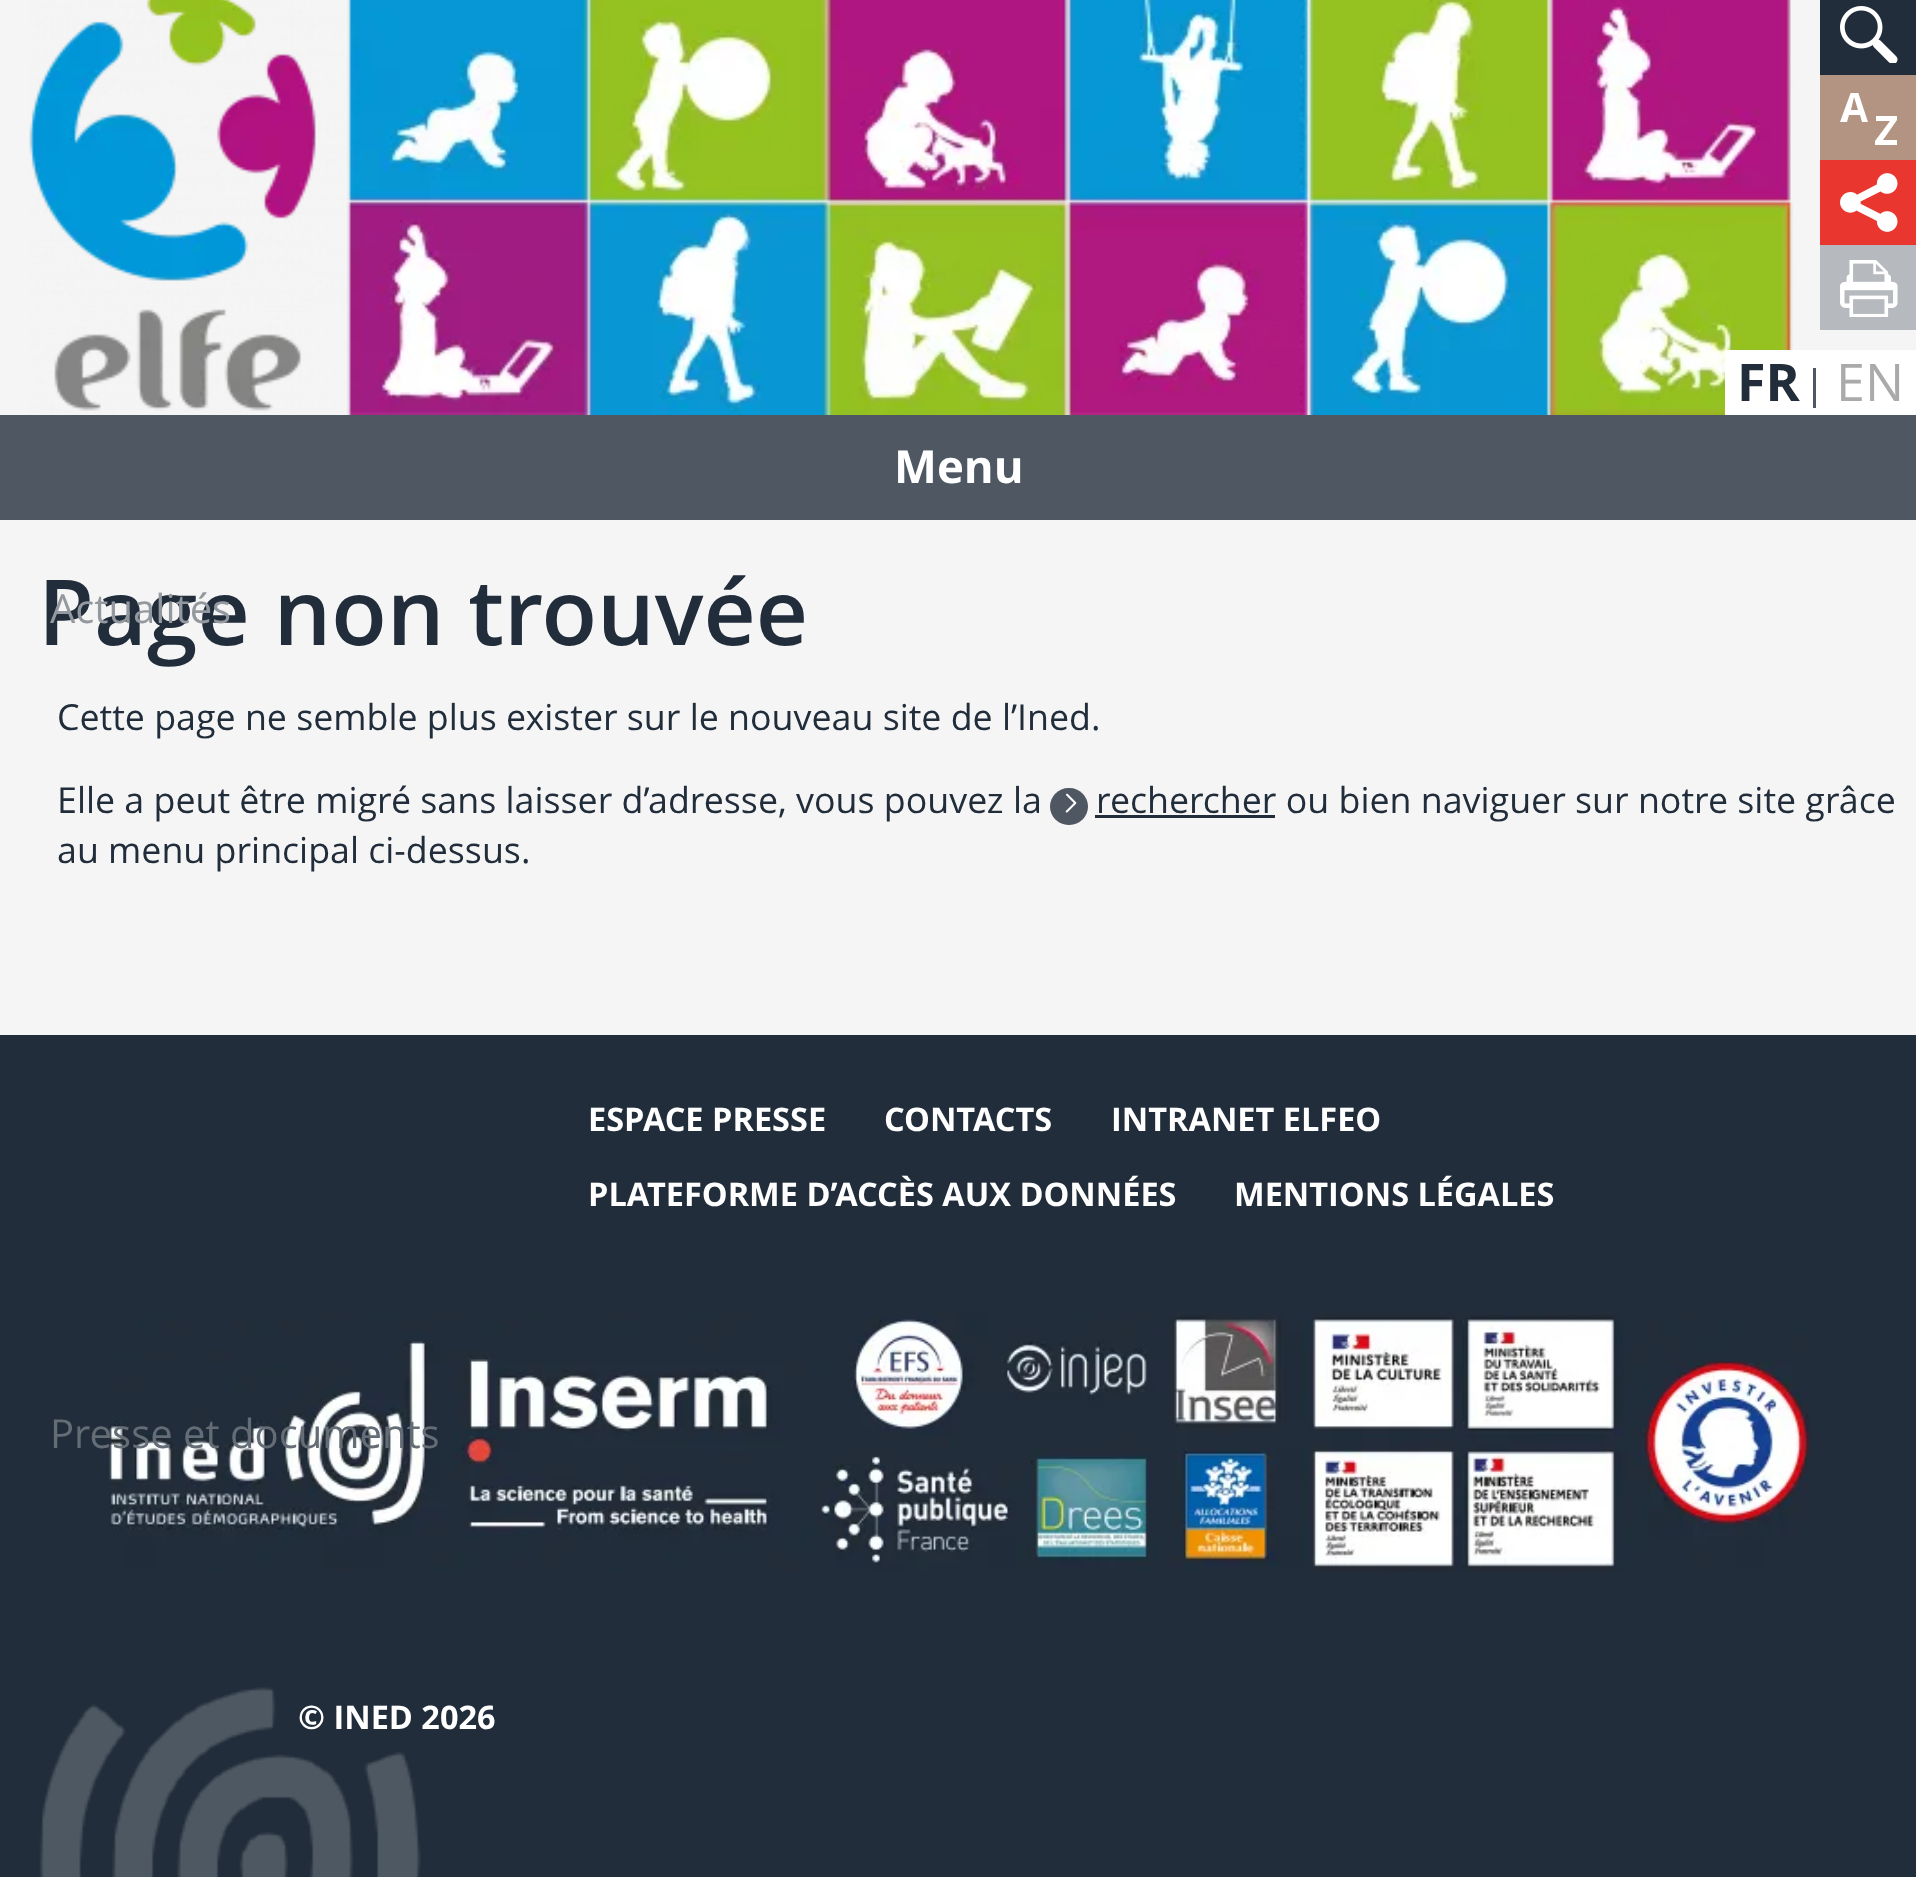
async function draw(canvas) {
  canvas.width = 1916
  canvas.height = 1877
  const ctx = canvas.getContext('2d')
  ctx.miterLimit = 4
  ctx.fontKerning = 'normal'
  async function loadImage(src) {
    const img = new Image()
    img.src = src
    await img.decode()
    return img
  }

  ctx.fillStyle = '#f5f5f5'
  ctx.fillRect(0, 0, 1916, 1877)
  ctx.fillStyle = '#212d3a'
  ctx.fillRect(1820, 0, 96, 75)
  ctx.drawImage(await loadImage('image0.png'), 1840, 6, 58, 57)
  ctx.fillStyle = '#b39482'
  ctx.fillRect(1820, 75, 96, 85)
  ctx.save()
  ctx.beginPath()
  ctx.rect(1840, 93, 58, 52)
  ctx.clip()
  ctx.fillStyle = '#fff'
  ctx.beginPath()
  ctx.moveTo(1862, 122)
  ctx.lineTo(1860, 115)
  ctx.lineTo(1849, 115)
  ctx.lineTo(1847, 122)
  ctx.lineTo(1840, 122)
  ctx.lineTo(1851, 92)
  ctx.lineTo(1858, 92)
  ctx.lineTo(1868, 122)
  ctx.closePath()
  ctx.moveTo(1858, 110)
  ctx.lineTo(1854, 97)
  ctx.lineTo(1851, 110)
  ctx.closePath()
  ctx.moveTo(1897, 145)
  ctx.lineTo(1875, 145)
  ctx.lineTo(1875, 141)
  ctx.lineTo(1890, 121)
  ctx.lineTo(1876, 121)
  ctx.lineTo(1876, 116)
  ctx.lineTo(1897, 116)
  ctx.lineTo(1897, 120)
  ctx.lineTo(1883, 140)
  ctx.lineTo(1897, 140)
  ctx.closePath()
  ctx.fill()
  ctx.restore()
  ctx.fillStyle = '#e9362f'
  ctx.fillRect(1820, 160, 96, 85)
  ctx.drawImage(await loadImage('image1.png'), 1840, 173, 58, 59)
  ctx.fillStyle = '#b6babe'
  ctx.fillRect(1820, 245, 96, 85)
  ctx.drawImage(await loadImage('image2.png'), 1840, 260, 58, 57)
  ctx.drawImage(await loadImage('image3.png'), 29, 0, 1764, 415)
  ctx.fillStyle = '#fff'
  ctx.fillRect(1725, 350, 191, 65)
  ctx.fillStyle = '#4e5762'
  ctx.fillRect(1813, 368, 3, 40)
  ctx.font = 'bold 52px Open Sans'
  ctx.fillStyle = '#212d3a'
  ctx.fillText('FR', 1737, 401)
  ctx.font = '52px Open Sans'
  ctx.fillStyle = '#aaa'
  ctx.fillText('EN', 1836, 401)
  ctx.fillStyle = '#4e5762'
  ctx.fillRect(0, 415, 1916, 105)
  ctx.font = 'bold 45.5px Open Sans'
  ctx.fillStyle = '#fff'
  ctx.fillText('Menu', 894, 483)
  ctx.font = '600 91px Open Sans'
  ctx.fillStyle = '#212d3a'
  ctx.fillText('Page non trouvée', 38, 645)
  ctx.font = '40px Open Sans'
  ctx.fillStyle = '#94999f'
  ctx.fillText('Actualités', 50, 623)
  ctx.fillStyle = '#212d3a'
  ctx.fillRect(0, 1035, 1916, 842)
  ctx.drawImage(await loadImage('image6.png'), 109, 1313, 1701, 259)
  ctx.fillStyle = '#646c75'
  ctx.fillText('Presse et documents', 50, 1448)
  ctx.font = '35.75px Open Sans'
  ctx.fillStyle = '#212d3a'
  ctx.fillText('Cette page ne semble plus exister sur le nouveau site de l’Ined.', 57, 730)
  ctx.fillText('Elle a peut être migré sans laisser d’adresse, vous pouvez la', 57, 813)
  ctx.fillStyle = '#4e5762'
  ctx.beginPath()
  ctx.roundRect(1050, 788, 38, 37, 18.5)
  ctx.fill()
  ctx.drawImage(await loadImage('image4.png'), 1065, 793, 12, 20)
  ctx.fillStyle = '#212d3a'
  ctx.fillRect(1095, 815, 180, 3)
  ctx.fillText('rechercher ou bien naviguer sur notre site grâce', 1096, 813)
  ctx.fillText('au menu principal ci-dessus.', 57, 863)
  ctx.drawImage(await loadImage('image5.png'), 39, 1687, 382, 190)
  ctx.font = 'bold 32.5px Open Sans'
  ctx.fillStyle = '#fff'
  ctx.fillText('ESPACE PRESSE', 588, 1131)
  ctx.fillText('CONTACTS', 884, 1131)
  ctx.fillText('INTRANET ELFEO', 1111, 1131)
  ctx.fillText('PLATEFORME D’ACCÈS AUX DONNÉES', 588, 1206)
  ctx.fillText('MENTIONS LÉGALES', 1234, 1206)
  ctx.fillText('© INED 2026', 298, 1729)
}

draw(document.querySelector('canvas'))
